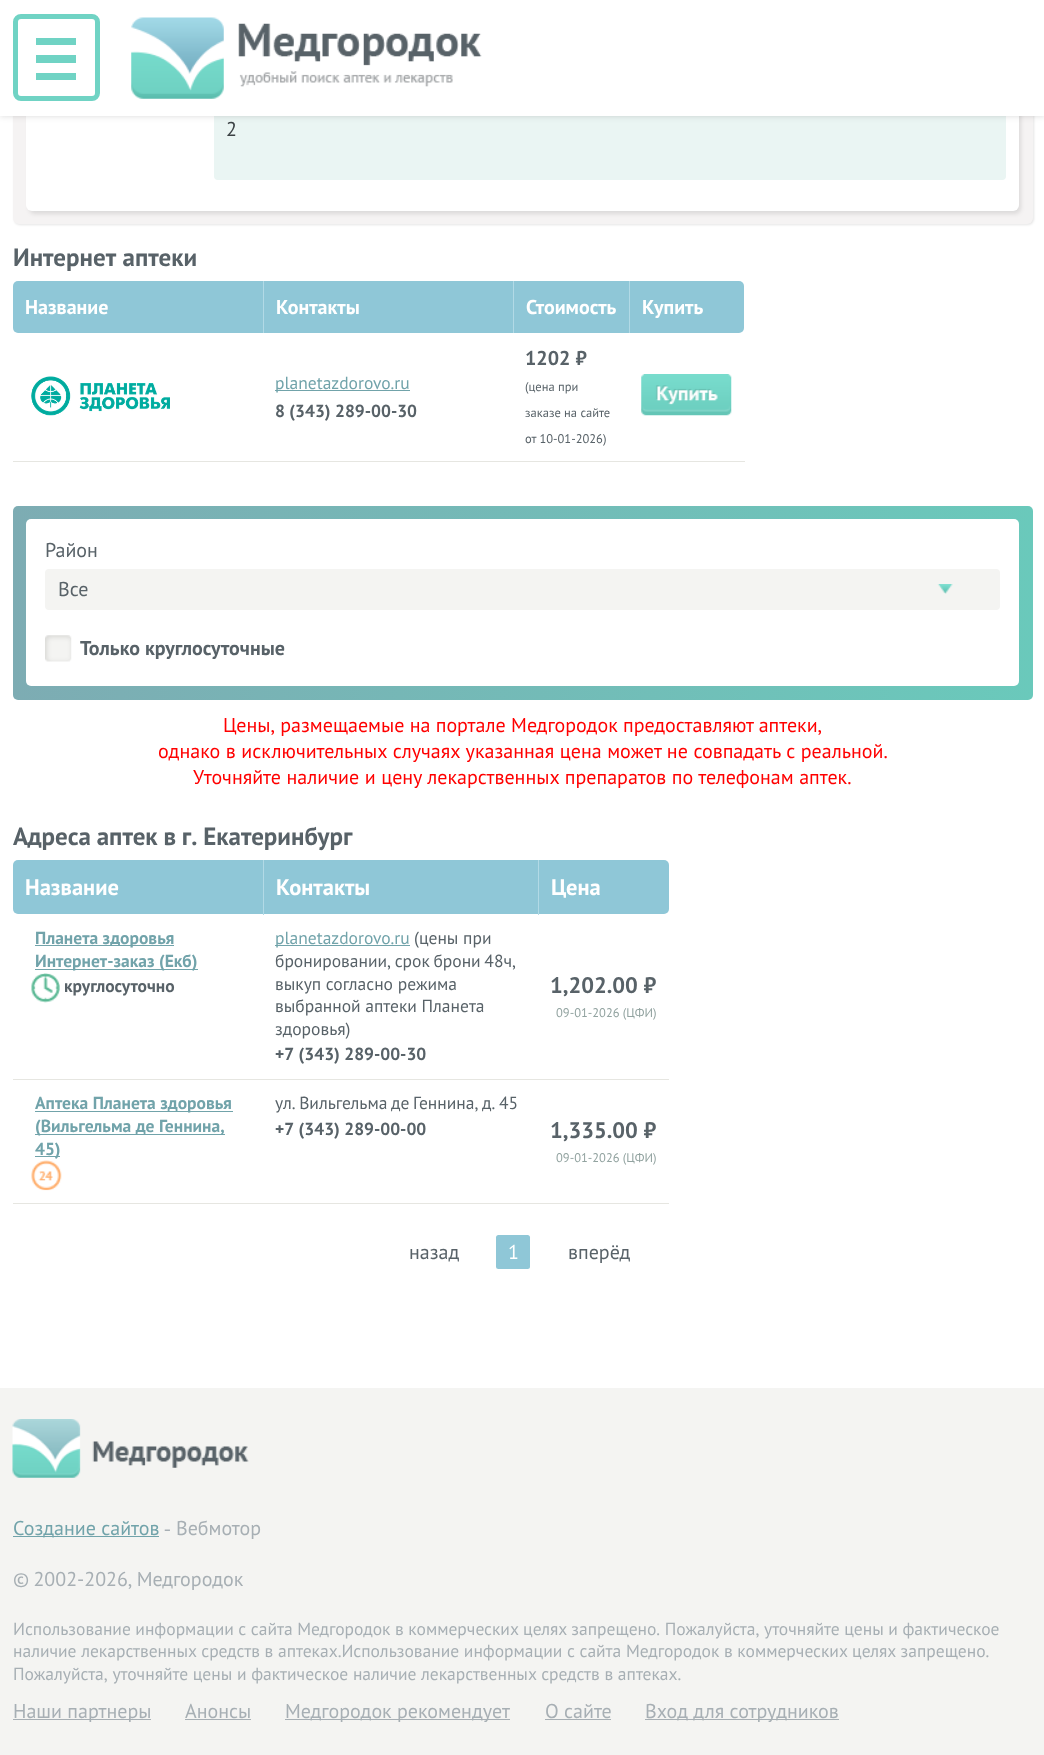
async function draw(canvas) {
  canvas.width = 1044
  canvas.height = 1755
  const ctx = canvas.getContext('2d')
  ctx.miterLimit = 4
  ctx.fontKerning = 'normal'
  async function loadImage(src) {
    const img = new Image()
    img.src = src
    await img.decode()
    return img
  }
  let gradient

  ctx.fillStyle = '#fff'
  ctx.fillRect(0, 0, 1044, 1755)
  ctx.fillStyle = '#0000001a'
  ctx.filter = 'blur(1px)'
  ctx.beginPath()
  ctx.roundRect(14, -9, 1020, 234, 6)
  ctx.fill()
  ctx.filter = 'none'
  ctx.fillStyle = '#f5f3f3'
  ctx.beginPath()
  ctx.roundRect(13, -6, 1020, 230, 6)
  ctx.fill()
  ctx.fillStyle = '#0000001a'
  ctx.filter = 'blur(2px)'
  ctx.beginPath()
  ctx.roundRect(29, -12, 992, 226, 6)
  ctx.fill()
  ctx.filter = 'none'
  ctx.fillStyle = '#fff'
  ctx.beginPath()
  ctx.roundRect(26, -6, 993, 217, 6)
  ctx.fill()
  ctx.fillStyle = '#eaf5f3'
  ctx.beginPath()
  ctx.roundRect(214, -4, 792, 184, 4)
  ctx.fill()
  ctx.fillStyle = '#00000026'
  ctx.filter = 'blur(3px)'
  ctx.beginPath()
  ctx.rect(0, 0, 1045, 116)
  ctx.fill()
  ctx.filter = 'none'
  ctx.fillStyle = '#fff'
  ctx.fillRect(0, 0, 1044, 116)
  ctx.beginPath()
  ctx.roundRect(15.5, 16.5, 82, 82, 5.5)
  ctx.strokeStyle = '#70d3c4'
  ctx.lineWidth = 5
  ctx.stroke()
  ctx.fillStyle = '#70d3c4'
  ctx.fillRect(36, 38, 40, 7)
  ctx.fillRect(36, 55, 40, 8)
  ctx.fillRect(36, 73, 40, 7)
  ctx.drawImage(await loadImage('image0.png'), 131, 17, 351, 82)
  ctx.font = '20px PT Sans'
  ctx.fillStyle = '#3b4144'
  ctx.fillText('2', 226, 136)
  ctx.wordSpacing = '1px'
  ctx.font = 'bold 25px PT Sans'
  ctx.fillStyle = '#586268'
  ctx.fillText('Интернет аптеки', 13, 266)
  ctx.fillStyle = '#8fc7d7'
  ctx.beginPath()
  ctx.roundRect(13, 281, 250, 52, [5, 0, 0, 5])
  ctx.fill()
  ctx.fillStyle = '#b2dae6'
  ctx.fillRect(263, 281, 1, 52)
  ctx.wordSpacing = '0px'
  ctx.font = 'bold 20px PT Sans'
  ctx.fillStyle = '#fff'
  ctx.fillText('Название', 25, 314)
  ctx.fillStyle = '#8fc7d7'
  ctx.fillRect(264, 281, 249, 52)
  ctx.fillStyle = '#b2dae6'
  ctx.fillRect(513, 281, 1, 52)
  ctx.fillStyle = '#fff'
  ctx.fillText('Контакты', 276, 314)
  ctx.fillStyle = '#8fc7d7'
  ctx.fillRect(514, 281, 115, 52)
  ctx.beginPath()
  ctx.roundRect(629, 281, 115, 52, [0, 5, 5, 0])
  ctx.fill()
  ctx.fillStyle = '#b2dae6'
  ctx.fillRect(629, 281, 1, 52)
  ctx.fillStyle = '#fff'
  ctx.fillText('Стоимость', 526, 314)
  ctx.fillText('Купить', 642, 314)
  ctx.fillStyle = '#e6e6e1'
  ctx.fillRect(13, 461, 732, 1)
  ctx.drawImage(await loadImage('image1.png'), 31, 376, 139, 40)
  ctx.fillStyle = '#71a3aa'
  ctx.fillRect(275, 390, 135, 1)
  ctx.font = '17.5px PT Sans'
  ctx.fillText('planetazdorovo.ru', 275, 389)
  ctx.font = 'bold 17.5px PT Sans'
  ctx.fillStyle = '#586268'
  ctx.fillText('8 (343) 289-00-30', 275, 417)
  ctx.font = 'bold 20px PT Sans'
  ctx.fillText('1202 ₽', 525, 365)
  ctx.font = '12.5px PT Sans'
  ctx.fillText('(цена при', 525, 391)
  ctx.fillText('заказе на сайте', 525, 417)
  ctx.fillText('от 10-01-2026)', 525, 443)
  ctx.drawImage(await loadImage('image2.png'), 641, 374, 91, 42)
  gradient = ctx.createLinearGradient(13, 603, 1033, 603)
  gradient.addColorStop(0, '#7dacb3')
  gradient.addColorStop(1, '#6ac9bb')
  ctx.fillStyle = gradient
  ctx.beginPath()
  ctx.roundRect(13, 506, 1020, 194, 5)
  ctx.fill()
  ctx.fillStyle = '#fff'
  ctx.beginPath()
  ctx.roundRect(26, 519, 993, 167, 5)
  ctx.fill()
  ctx.font = '20px PT Sans'
  ctx.fillStyle = '#586268'
  ctx.fillText('Район', 45, 557)
  ctx.fillStyle = '#f4f4f2'
  ctx.beginPath()
  ctx.roundRect(45, 569, 955, 41, 4)
  ctx.fill()
  ctx.drawImage(await loadImage('image3.png'), 937, 584, 16, 10)
  ctx.fillStyle = '#586268'
  ctx.fillText('Все', 58, 596)
  ctx.drawImage(await loadImage('image4.png'), 45, 635, 27, 27)
  ctx.font = 'bold 20px PT Sans'
  ctx.fillText('Только круглосуточные', 80, 655)
  ctx.font = '20px PT Sans'
  ctx.fillStyle = '#f00'
  ctx.fillText('Цены, размещаемые на портале Медгородок предоставляют аптеки,', 223, 732)
  ctx.wordSpacing = '0.25px'
  ctx.fillText('однако в исключительных случаях указанная цена может не совпадать с реальной.', 158, 758)
  ctx.fillText('Уточняйте наличие и цену лекарственных препаратов по телефонам аптек.', 193, 784)
  ctx.wordSpacing = '-0.5px'
  ctx.font = 'bold 25px PT Sans'
  ctx.fillStyle = '#586268'
  ctx.fillText('Адреса аптек в г. Екатеринбург', 13, 845)
  ctx.fillStyle = '#8fc7d7'
  ctx.beginPath()
  ctx.roundRect(13, 860, 250, 54, [5, 0, 0, 5])
  ctx.fill()
  ctx.fillStyle = '#b2dae6'
  ctx.fillRect(263, 860, 1, 55)
  ctx.wordSpacing = '0px'
  ctx.font = 'bold 22.5px PT Sans'
  ctx.fillStyle = '#fff'
  ctx.fillText('Название', 25, 895)
  ctx.fillStyle = '#8fc7d7'
  ctx.fillRect(264, 860, 274, 54)
  ctx.beginPath()
  ctx.roundRect(538, 860, 131, 54, [0, 5, 5, 0])
  ctx.fill()
  ctx.fillStyle = '#b2dae6'
  ctx.fillRect(538, 860, 1, 55)
  ctx.fillStyle = '#fff'
  ctx.fillText('Контакты', 276, 895)
  ctx.fillText('Цена', 551, 895)
  ctx.fillStyle = '#e6e6e1'
  ctx.fillRect(13, 1079, 656, 1)
  ctx.fillStyle = '#71a3aa'
  ctx.fillRect(35, 945, 139, 1)
  ctx.font = 'bold 17.5px PT Sans'
  ctx.fillText('Планета здоровья', 35, 944)
  ctx.fillRect(35, 969, 163, 1)
  ctx.fillText('Интернет-заказ (Екб)', 35, 967)
  ctx.drawImage(await loadImage('image5.png'), 31, 973, 29, 30)
  ctx.fillStyle = '#586268'
  ctx.fillText('круглосуточно', 64, 992)
  ctx.fillStyle = '#71a3aa'
  ctx.fillRect(275, 945, 135, 1)
  ctx.font = '17.5px PT Sans'
  ctx.fillText('planetazdorovo.ru', 275, 944)
  ctx.fillStyle = '#586268'
  ctx.fillText('(цены при', 414, 944)
  ctx.wordSpacing = '-1px'
  ctx.fillText('бронировании, срок брони 48ч,', 275, 967)
  ctx.wordSpacing = '0px'
  ctx.fillText('выкуп согласно режима', 275, 990)
  ctx.fillText('выбранной аптеки Планета', 275, 1012)
  ctx.fillText('здоровья)', 275, 1035)
  ctx.font = 'bold 17.5px PT Sans'
  ctx.fillText('+7 (343) 289-00-30', 275, 1060)
  ctx.font = 'bold 22.5px PT Sans'
  ctx.fillText('1,202.00 ₽', 550, 993)
  ctx.font = '12.5px PT Sans'
  ctx.fillStyle = '#92a3a0'
  ctx.fillText('09-01-2026 (ЦФИ)', 556, 1017)
  ctx.fillStyle = '#e6e6e1'
  ctx.fillRect(13, 1203, 656, 1)
  ctx.fillStyle = '#71a3aa'
  ctx.fillRect(35, 1111, 198, 1)
  ctx.font = 'bold 17.5px PT Sans'
  ctx.fillText('Аптека Планета здоровья', 35, 1109)
  ctx.fillRect(35, 1134, 190, 1)
  ctx.fillText('(Вильгельма де Геннина,', 35, 1132)
  ctx.fillRect(35, 1156, 25, 1)
  ctx.fillText('45)', 35, 1155)
  ctx.drawImage(await loadImage('image6.png'), 31, 1160, 31, 31)
  ctx.wordSpacing = '-1px'
  ctx.font = '17.5px PT Sans'
  ctx.fillStyle = '#586268'
  ctx.fillText('ул. Вильгельма де Геннина, д. 45', 275, 1109)
  ctx.wordSpacing = '0px'
  ctx.font = 'bold 17.5px PT Sans'
  ctx.fillText('+7 (343) 289-00-00', 275, 1135)
  ctx.font = 'bold 22.5px PT Sans'
  ctx.fillText('1,335.00 ₽', 550, 1138)
  ctx.font = '12.5px PT Sans'
  ctx.fillStyle = '#92a3a0'
  ctx.fillText('09-01-2026 (ЦФИ)', 556, 1162)
  ctx.font = '20px PT Sans'
  ctx.fillStyle = '#586268'
  ctx.fillText('назад', 409, 1259)
  ctx.fillStyle = '#8fc7d7'
  ctx.beginPath()
  ctx.roundRect(496, 1235, 34, 34, 2.5)
  ctx.fill()
  ctx.fillStyle = '#fff'
  ctx.fillText('1', 508, 1259)
  ctx.fillStyle = '#586268'
  ctx.fillText('вперёд', 568, 1259)
  ctx.fillStyle = '#f4f4f2'
  ctx.fillRect(0, 1388, 1044, 367)
  ctx.drawImage(await loadImage('image7.png'), 12, 1419, 237, 59)
  ctx.fillStyle = '#71a3aa'
  ctx.fillRect(13, 1536, 146, 1)
  ctx.fillText('Создание сайтов', 13, 1535)
  ctx.font = '20px Liberation Serif'
  ctx.fillStyle = '#a7afb4'
  ctx.fillText('‐', 164, 1535)
  ctx.font = '20px PT Sans'
  ctx.fillText('Вебмотор', 176, 1535)
  ctx.wordSpacing = '-1px'
  ctx.fillText('© 2002-2026, Медгородок', 13, 1586)
  ctx.wordSpacing = '-0.1px'
  ctx.font = '17.5px PT Sans'
  ctx.fillText('Использование информации с сайта Медгородок в коммерческих целях запрещено. Пожалуйста, уточняйте цены и фактическое', 13, 1635)
  ctx.wordSpacing = '0px'
  ctx.fillText('наличие лекарственных средств в аптеках.Использование информации с сайта Медгородок в коммерческих целях запрещено.', 13, 1657)
  ctx.fillText('Пожалуйста, уточняйте цены и фактическое наличие лекарственных средств в аптеках.', 13, 1680)
  ctx.fillRect(13, 1719, 138, 1)
  ctx.font = '20px PT Sans'
  ctx.fillText('Hаши партнеры', 13, 1718)
  ctx.fillText('Анонсы', 185, 1718)
  ctx.fillRect(185, 1719, 66, 1)
  ctx.fillRect(285, 1719, 225, 1)
  ctx.fillText('Медгородок рекомендует', 285, 1718)
  ctx.fillText('О сайте', 545, 1718)
  ctx.fillRect(545, 1719, 66, 1)
  ctx.fillRect(645, 1719, 194, 1)
  ctx.fillText('Вход для сотрудников', 645, 1718)
}

draw(document.querySelector('canvas'))
